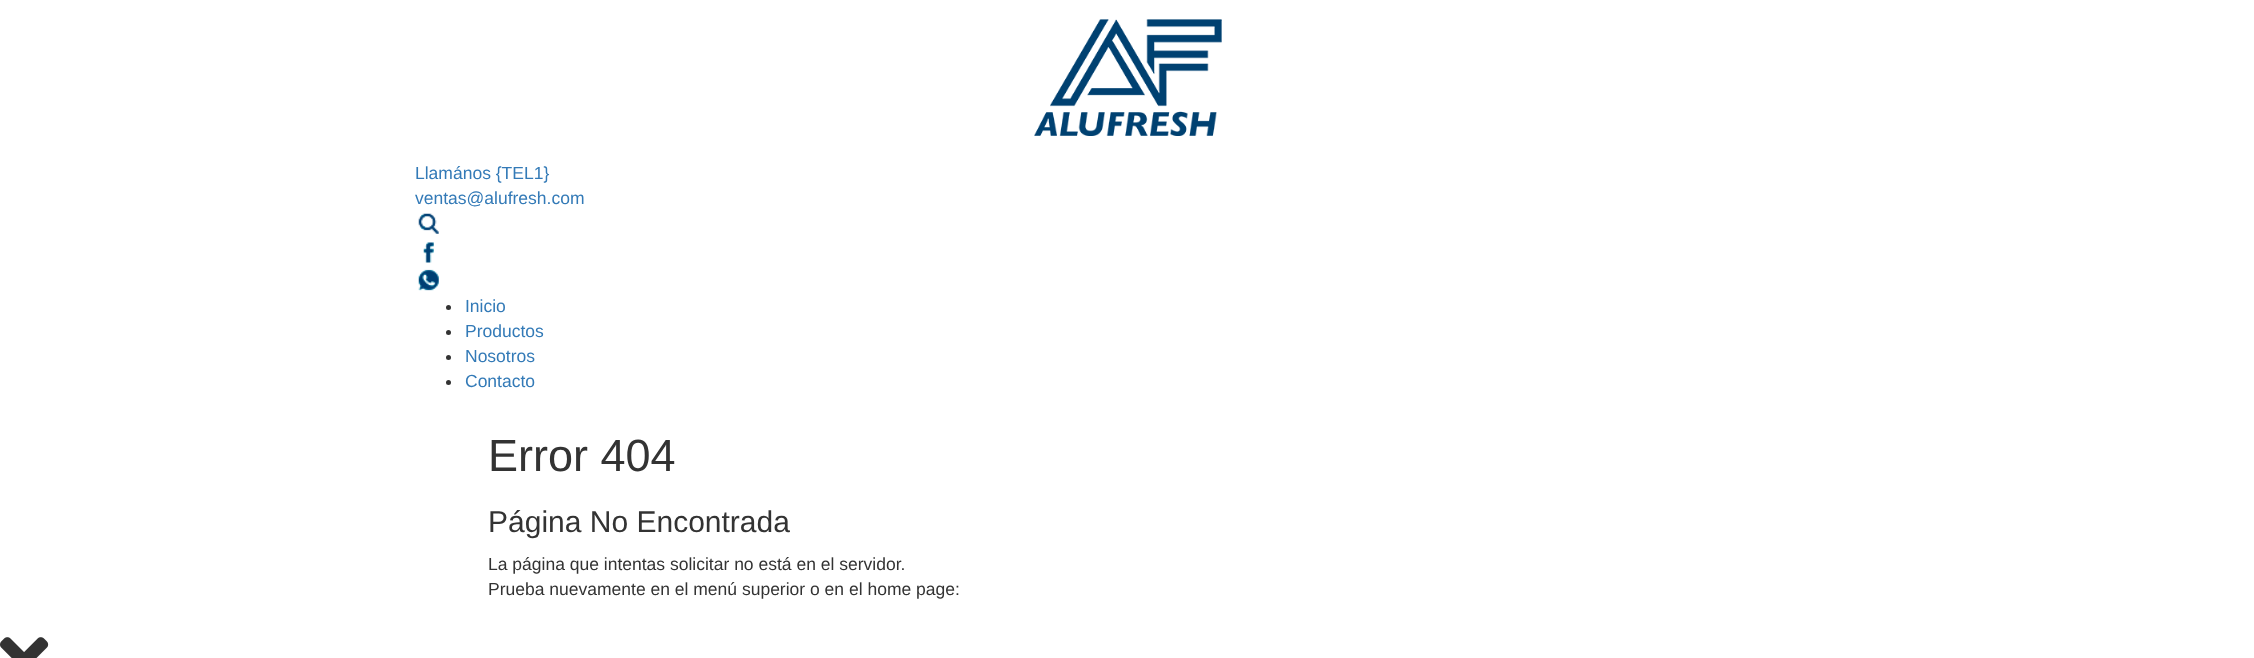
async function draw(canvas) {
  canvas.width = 2254
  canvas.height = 658
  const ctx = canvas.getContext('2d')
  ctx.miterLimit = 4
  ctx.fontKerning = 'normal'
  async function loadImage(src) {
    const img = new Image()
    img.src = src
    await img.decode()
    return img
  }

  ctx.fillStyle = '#fff'
  ctx.fillRect(0, 0, 2254, 658)
  ctx.drawImage(await loadImage('image0.png'), 1034, 19, 188, 117)
  ctx.font = '17.5px Liberation Sans'
  ctx.fillStyle = '#337ab7'
  ctx.fillText('Llamános {TEL1}', 415, 179)
  ctx.fillText('ventas@alufresh.com', 415, 204)
  ctx.drawImage(await loadImage('image1.png'), 418, 213, 21, 21)
  ctx.drawImage(await loadImage('image2.png'), 423, 242, 11, 21)
  ctx.drawImage(await loadImage('image3.png'), 418, 269, 21, 22)
  ctx.fillStyle = '#333'
  ctx.beginPath()
  ctx.arc(448.5, 307.5, 2.5, 0, 2 * Math.PI)
  ctx.fill()
  ctx.fillStyle = '#337ab7'
  ctx.fillText('Inicio', 465, 312)
  ctx.fillStyle = '#333'
  ctx.beginPath()
  ctx.arc(448.5, 332.5, 2.5, 0, 2 * Math.PI)
  ctx.fill()
  ctx.fillStyle = '#337ab7'
  ctx.fillText('Productos', 465, 337)
  ctx.fillStyle = '#333'
  ctx.beginPath()
  ctx.arc(448.5, 357.5, 2.5, 0, 2 * Math.PI)
  ctx.fill()
  ctx.fillStyle = '#337ab7'
  ctx.fillText('Nosotros', 465, 362)
  ctx.fillStyle = '#333'
  ctx.beginPath()
  ctx.arc(448.5, 382.5, 2.5, 0, 2 * Math.PI)
  ctx.fill()
  ctx.fillStyle = '#337ab7'
  ctx.fillText('Contacto', 465, 387)
  ctx.font = '45px Liberation Sans'
  ctx.fillStyle = '#333'
  ctx.fillText('Error 404', 488, 471)
  ctx.font = '30px Liberation Sans'
  ctx.fillText('Página No Encontrada', 488, 532)
  ctx.font = '17.5px Liberation Sans'
  ctx.fillText('La página que intentas solicitar no está en el servidor.', 488, 570)
  ctx.fillText('Prueba nuevamente en el menú superior o en el home page:', 488, 595)
  ctx.drawImage(await loadImage('image4.png'), 0, 637, 49, 21)
}

draw(document.querySelector('canvas'))
